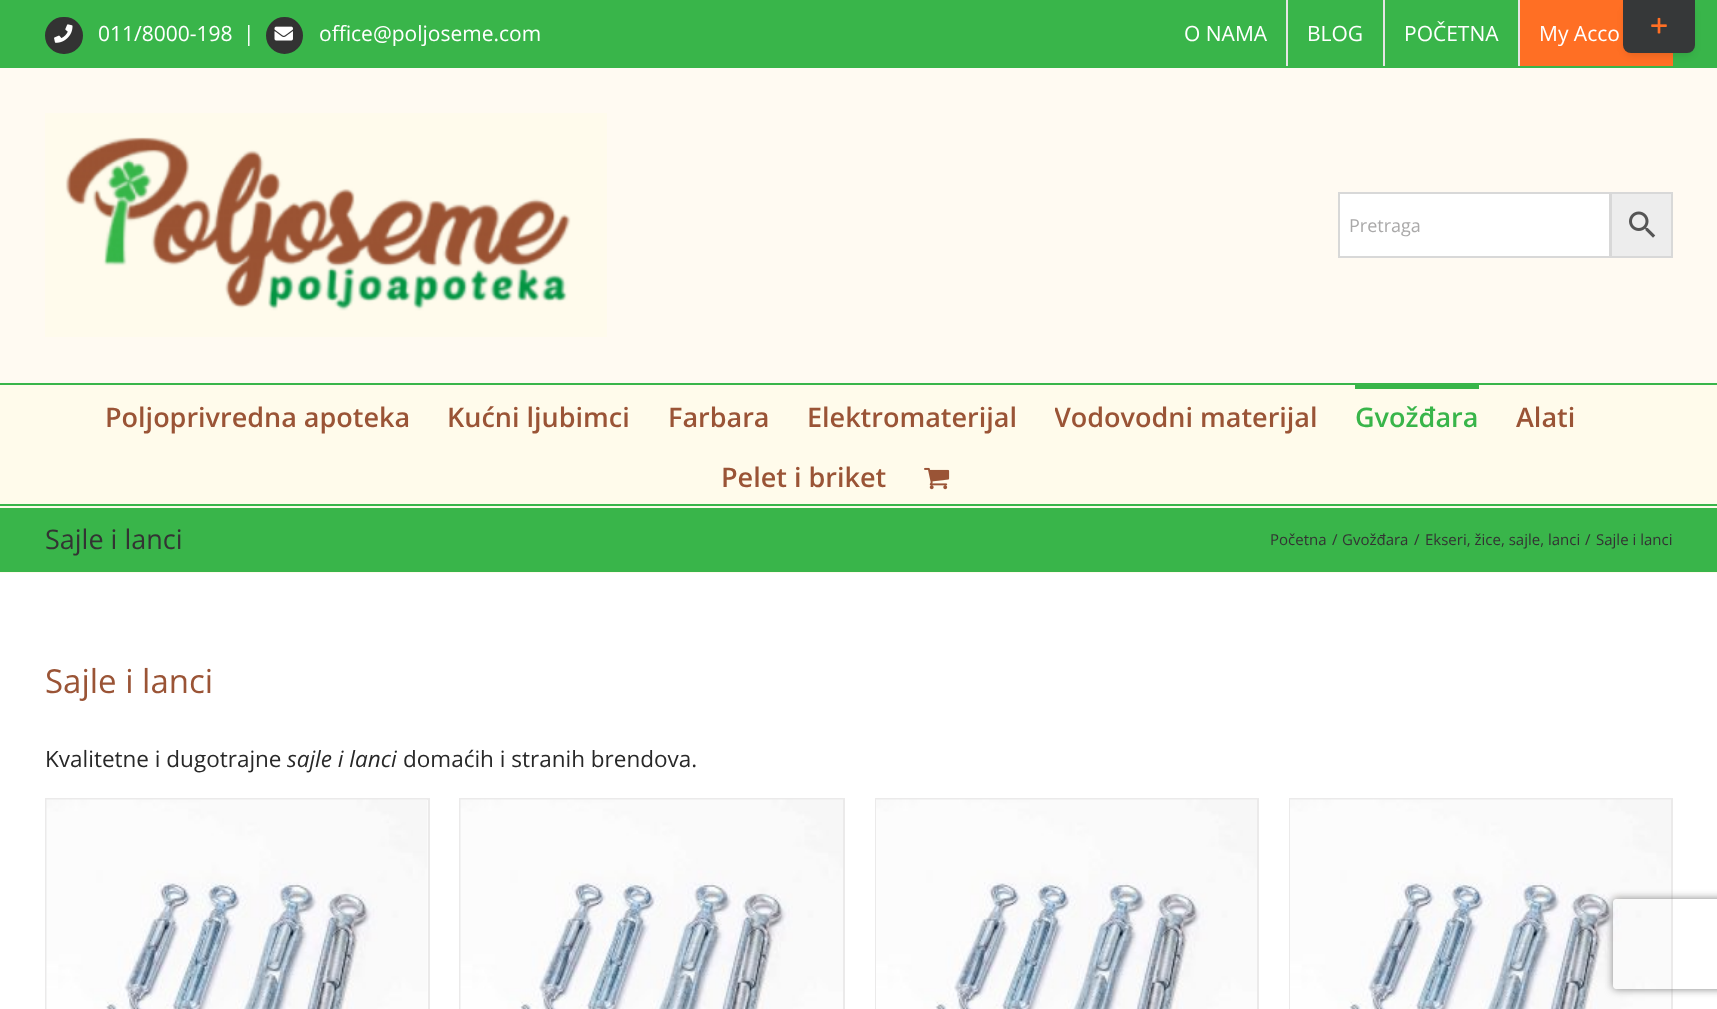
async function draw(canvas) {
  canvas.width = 1717
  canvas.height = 1009
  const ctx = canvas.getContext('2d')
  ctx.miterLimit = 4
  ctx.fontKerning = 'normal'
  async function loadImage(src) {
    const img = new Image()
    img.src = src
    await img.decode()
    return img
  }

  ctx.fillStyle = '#39b54a'
  ctx.fillRect(0, 0, 1717, 1009)
  ctx.fillStyle = '#333'
  ctx.beginPath()
  ctx.roundRect(46, 18, 36, 35, 17.5)
  ctx.fill()
  ctx.strokeStyle = '#333'
  ctx.lineWidth = 2
  ctx.stroke()
  ctx.drawImage(await loadImage('image0.png'), 54, 24, 19, 19)
  ctx.font = '21px Open Sans'
  ctx.fillStyle = '#fff'
  ctx.fillText('011/8000-198', 98, 41)
  ctx.fillText('|', 243, 41)
  ctx.fillStyle = '#333'
  ctx.beginPath()
  ctx.arc(284.5, 35.5, 17.5, 0, 2 * Math.PI)
  ctx.fill()
  ctx.stroke()
  ctx.drawImage(await loadImage('image1.png'), 274, 26, 19, 15)
  ctx.fillStyle = '#fff'
  ctx.fillText('office@poljoseme.com', 319, 41)
  ctx.fillText('O NAMA', 1184, 41)
  ctx.fillStyle = '#e5e5e5'
  ctx.fillRect(1286, 0, 2, 66)
  ctx.fillStyle = '#fff'
  ctx.fillText('BLOG', 1307, 41)
  ctx.fillStyle = '#e5e5e5'
  ctx.fillRect(1383, 0, 2, 66)
  ctx.fillStyle = '#fff'
  ctx.fillText('POČETNA', 1404, 41)
  ctx.fillStyle = '#ff6f24'
  ctx.fillRect(1520, 0, 153, 66)
  ctx.fillStyle = '#e5e5e5'
  ctx.fillRect(1518, 0, 2, 66)
  ctx.fillStyle = '#fff'
  ctx.fillText('My Acco', 1539, 41)
  ctx.fillStyle = '#fffaf2'
  ctx.fillRect(0, 68, 1717, 315)
  ctx.drawImage(await loadImage('image2.png'), 45, 113, 562, 224)
  ctx.fillStyle = '#ededed'
  ctx.beginPath()
  ctx.rect(1611, 193, 61, 64)
  ctx.fill()
  ctx.strokeStyle = '#d8d8d8'
  ctx.stroke()
  ctx.fillStyle = '#fff'
  ctx.beginPath()
  ctx.rect(1339, 193, 271, 64)
  ctx.fill()
  ctx.stroke()
  ctx.font = '18px Open Sans'
  ctx.fillStyle = '#aaa9a9'
  ctx.fillText('Pretraga', 1349, 232)
  ctx.drawImage(await loadImage('image3.png'), 1629, 211, 27, 27)
  ctx.fillStyle = '#fffbeb'
  ctx.fillRect(0, 385, 1717, 119)
  ctx.font = '600 27px Open Sans'
  ctx.fillStyle = '#9a5436'
  ctx.fillText('Poljoprivredna apoteka', 105, 427)
  ctx.fillText('Kućni ljubimci', 447, 427)
  ctx.fillText('Farbara', 668, 427)
  ctx.fillText('Elektromaterijal', 807, 427)
  ctx.save()
  ctx.beginPath()
  ctx.rect(1055, 384, 300, 60)
  ctx.clip()
  ctx.fillText('Vodovodni materijal', 1054, 427)
  ctx.restore()
  ctx.fillStyle = '#39b54a'
  ctx.fillRect(1355, 385, 124, 4)
  ctx.fillText('Gvožđara', 1355, 427)
  ctx.fillStyle = '#9a5436'
  ctx.fillText('Alati', 1516, 427)
  ctx.fillText('Pelet i briket', 721, 487)
  ctx.drawImage(await loadImage('image4.png'), 924, 467, 26, 23)
  ctx.fillStyle = '#00000024'
  ctx.filter = 'blur(4px)'
  ctx.beginPath()
  ctx.roundRect(1626, 8, 66, 46, 5)
  ctx.fill()
  ctx.filter = 'none'
  ctx.fillStyle = '#363839'
  ctx.beginPath()
  ctx.roundRect(1623, 0, 72, 53, [0, 0, 8, 8])
  ctx.fill()
  ctx.drawImage(await loadImage('image5.png'), 1651, 17, 16, 17)
  ctx.fillStyle = '#fffbeb'
  ctx.fillRect(0, 506, 1717, 2)
  ctx.fillRect(0, 572, 1717, 1)
  ctx.font = '27px Open Sans'
  ctx.fillStyle = '#333'
  ctx.fillText('Sajle i lanci', 45, 549)
  ctx.font = '15px Open Sans'
  ctx.fillText('Početna', 1270, 545)
  ctx.fillText('/', 1332, 545)
  ctx.fillText('Gvožđara', 1342, 545)
  ctx.fillText('/', 1414, 545)
  ctx.fillText('Ekseri, žice, sajle, lanci', 1425, 545)
  ctx.fillText('/', 1585, 545)
  ctx.fillText('Sajle i lanci', 1596, 545)
  ctx.fillStyle = '#fff'
  ctx.fillRect(0, 573, 1717, 436)
  ctx.font = '33px Open Sans'
  ctx.fillStyle = '#9a5436'
  ctx.fillText('Sajle i lanci', 45, 693)
  ctx.font = '22.5px Open Sans'
  ctx.fillStyle = '#282828'
  ctx.fillText('Kvalitetne i dugotrajne', 45, 767)
  ctx.font = 'italic 22.5px Open Sans'
  ctx.fillText('sajle i lanci', 287, 767)
  ctx.font = '22.5px Open Sans'
  ctx.fillText('domaćih i stranih brendova.', 403, 767)
  ctx.fillStyle = '#ebeaea'
  ctx.fillRect(45, 798, 384, 2)
  ctx.fillRect(428, 798, 2, 211)
  ctx.fillRect(45, 798, 2, 211)
  ctx.drawImage(await loadImage('image6.png'), 46, 799, 382, 210)
  ctx.fillRect(459, 798, 386, 2)
  ctx.fillRect(843, 798, 2, 211)
  ctx.fillRect(459, 798, 2, 211)
  ctx.drawImage(await loadImage('image7.png'), 460, 799, 383, 210)
  ctx.fillRect(875, 798, 384, 2)
  ctx.fillRect(1257, 798, 2, 211)
  ctx.fillRect(875, 798, 2, 211)
  ctx.drawImage(await loadImage('image8.png'), 876, 799, 381, 210)
  ctx.fillRect(1289, 798, 384, 2)
  ctx.fillRect(1671, 798, 2, 211)
  ctx.fillRect(1289, 798, 2, 211)
  ctx.drawImage(await loadImage('image8.png'), 1290, 799, 381, 210)
  ctx.save()
  ctx.beginPath()
  ctx.moveTo(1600, 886)
  ctx.lineTo(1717, 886)
  ctx.lineTo(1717, 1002)
  ctx.lineTo(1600, 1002)
  ctx.closePath()
  ctx.moveTo(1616, 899)
  ctx.lineTo(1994, 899)
  ctx.bezierCurveTo(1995.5, 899, 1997, 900.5, 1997, 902)
  ctx.lineTo(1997, 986)
  ctx.bezierCurveTo(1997, 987.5, 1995.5, 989, 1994, 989)
  ctx.lineTo(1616, 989)
  ctx.bezierCurveTo(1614.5, 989, 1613, 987.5, 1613, 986)
  ctx.lineTo(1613, 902)
  ctx.bezierCurveTo(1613, 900.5, 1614.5, 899, 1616, 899)
  ctx.closePath()
  ctx.clip('evenodd')
  ctx.fillStyle = '#808080'
  ctx.filter = 'blur(4px)'
  ctx.beginPath()
  ctx.roundRect(1613, 899, 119, 90, 3)
  ctx.fill()
  ctx.filter = 'none'
  ctx.restore()
}

draw(document.querySelector('canvas'))
